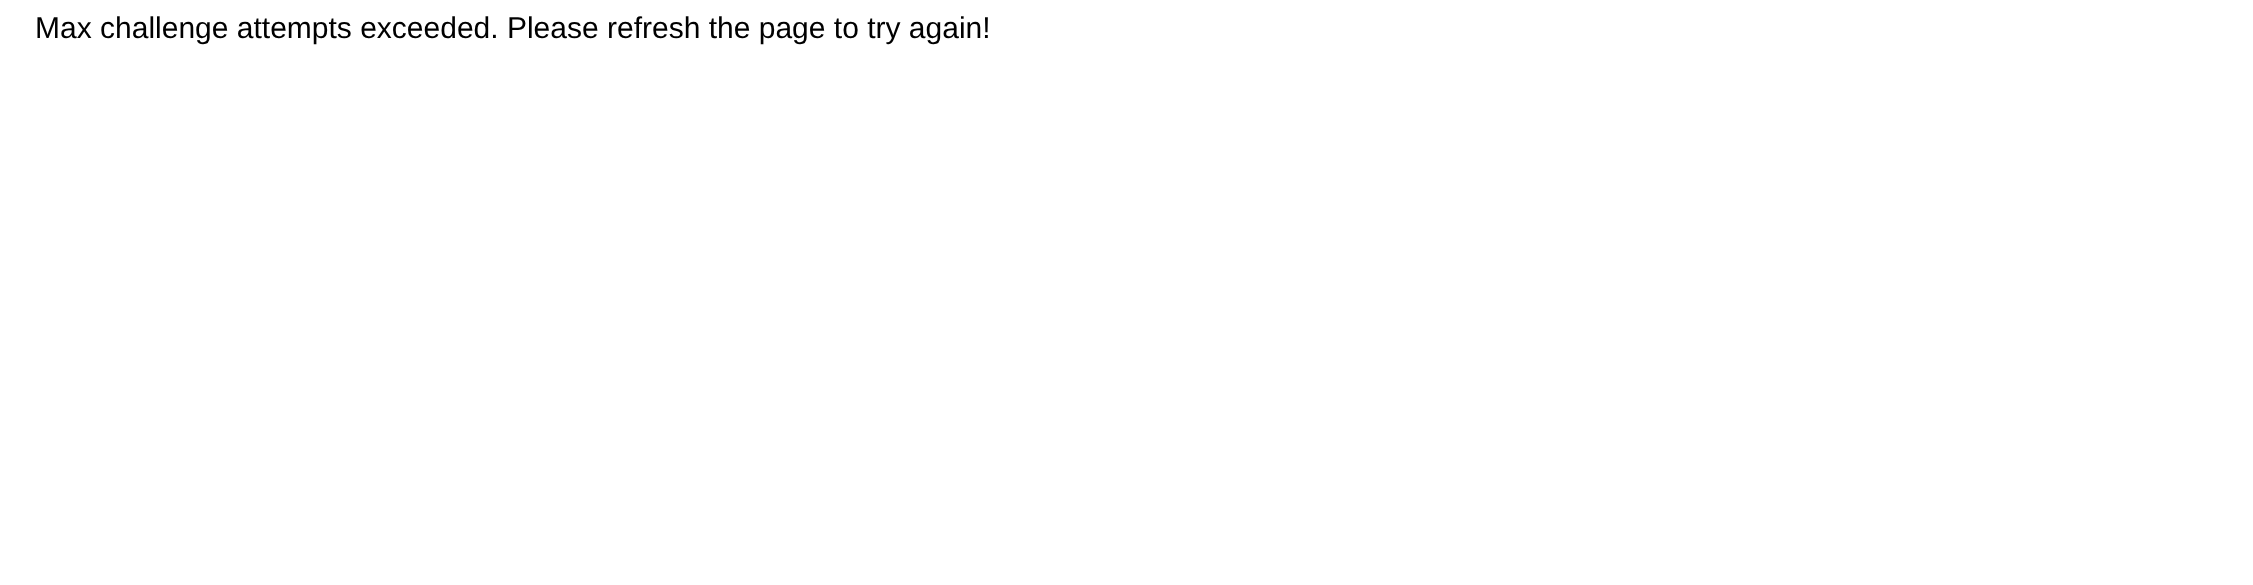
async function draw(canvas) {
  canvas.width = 2253
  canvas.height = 585
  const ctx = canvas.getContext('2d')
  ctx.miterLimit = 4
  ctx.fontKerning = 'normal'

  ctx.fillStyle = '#fff'
  ctx.fillRect(0, 0, 2253, 585)
  ctx.font = '30px Liberation Sans'
  ctx.fillStyle = '#000'
  ctx.fillText('Max challenge attempts exceeded. Please refresh the page to try again!', 35, 38)
}

draw(document.querySelector('canvas'))
